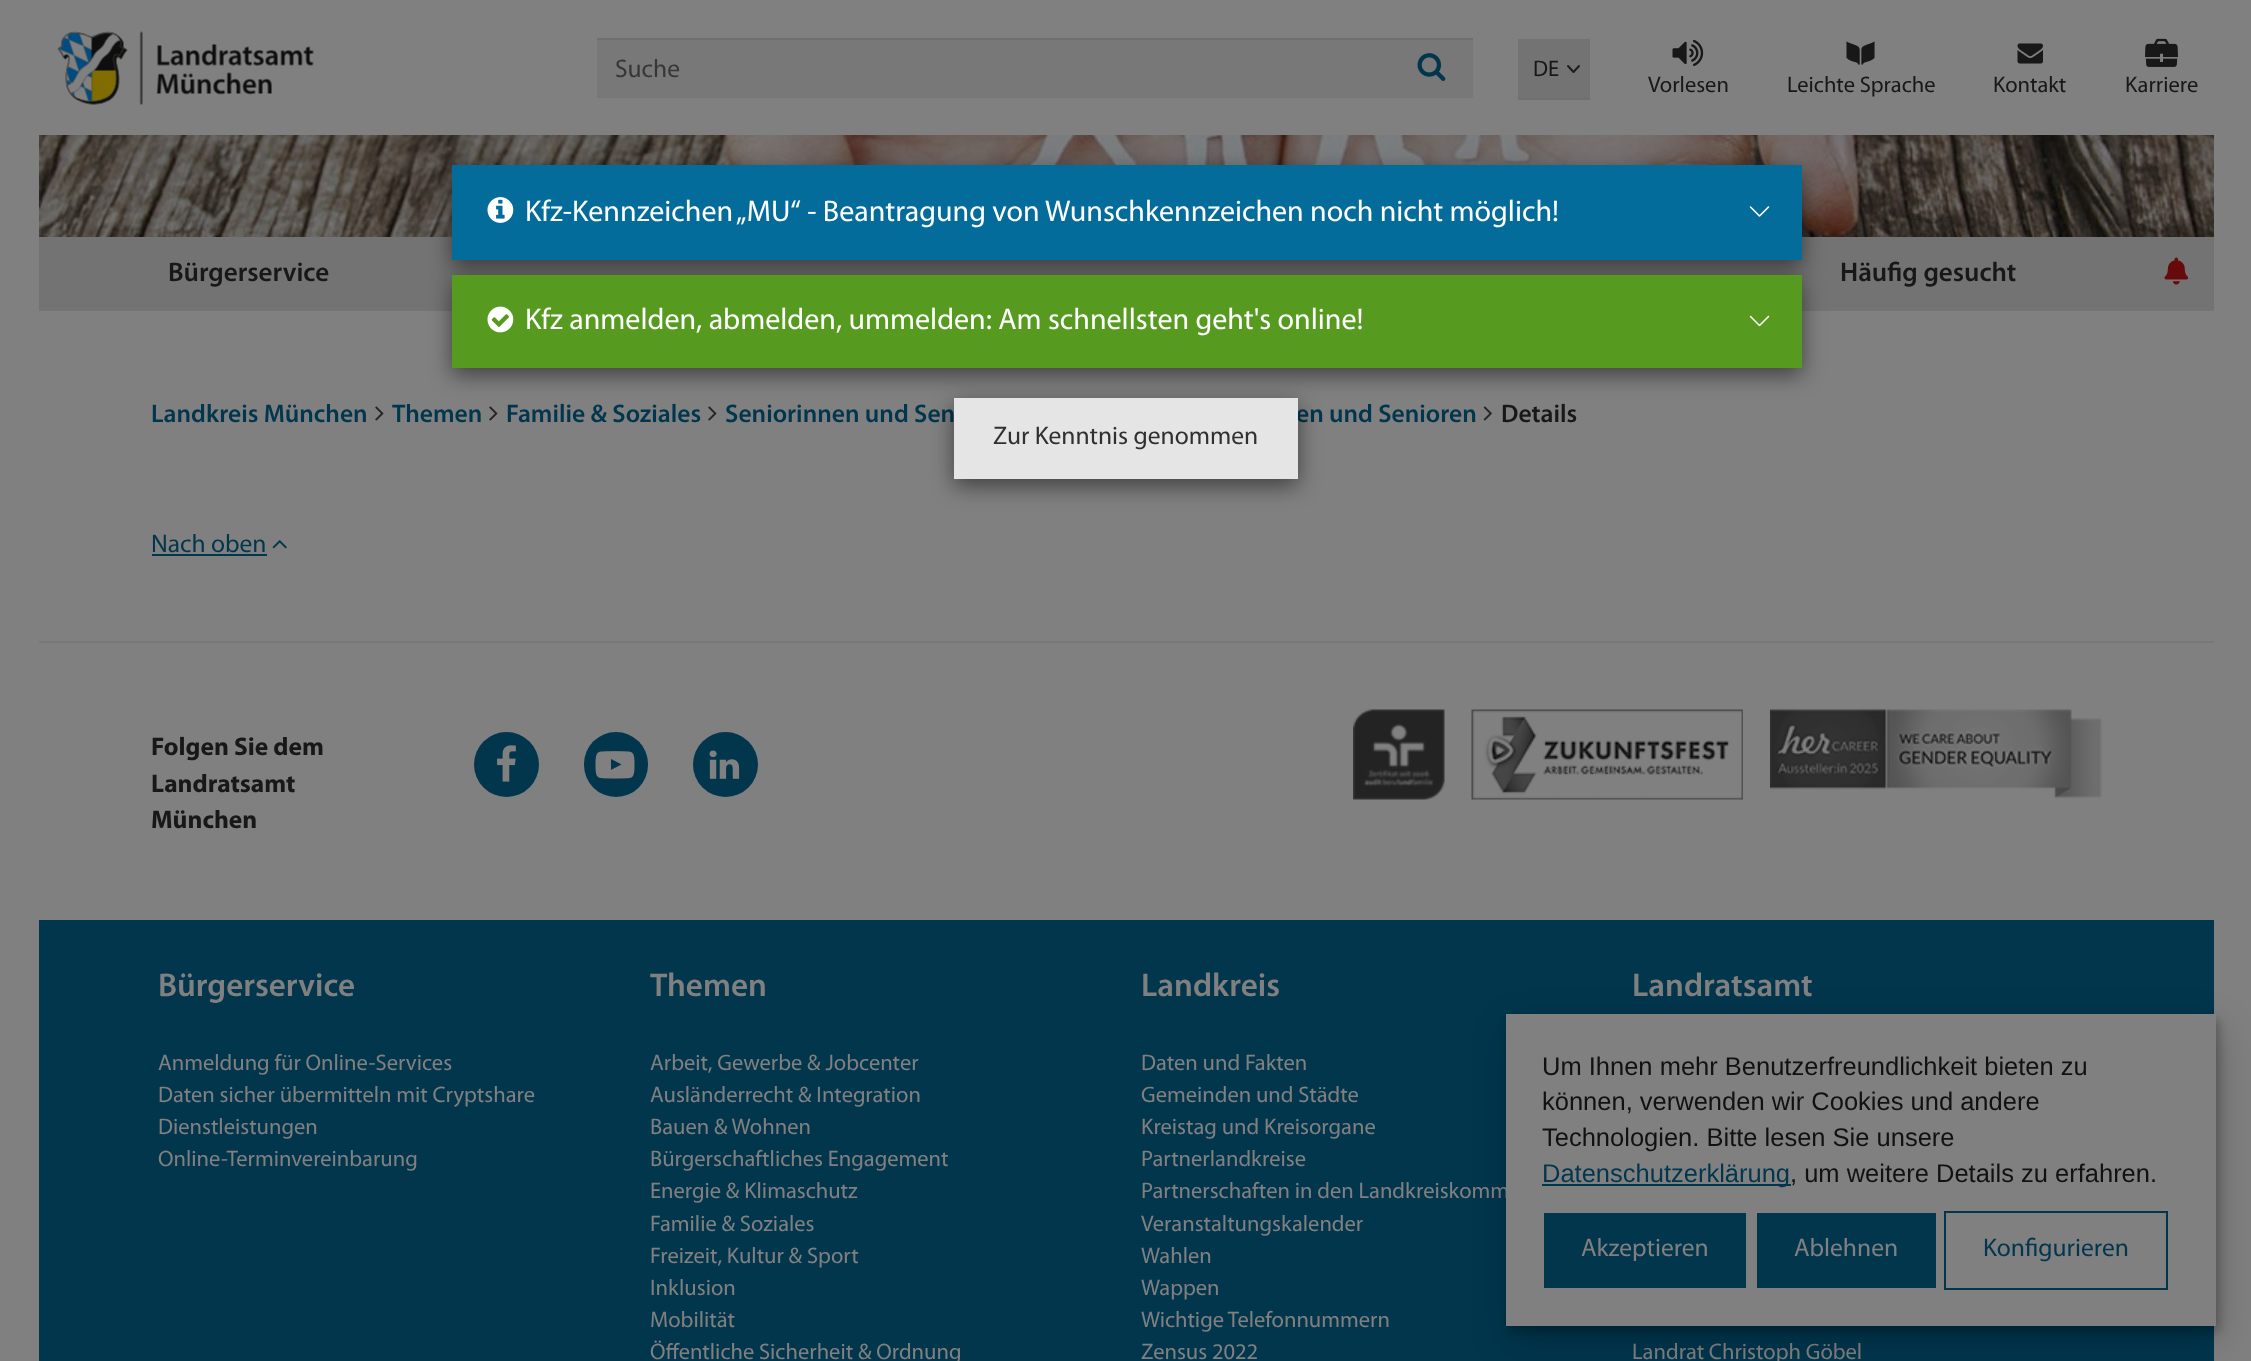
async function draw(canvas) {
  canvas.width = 2251
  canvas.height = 1361
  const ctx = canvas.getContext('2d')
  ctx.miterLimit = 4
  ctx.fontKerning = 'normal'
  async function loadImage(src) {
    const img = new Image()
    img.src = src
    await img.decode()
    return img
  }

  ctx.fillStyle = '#808080'
  ctx.fillRect(0, 0, 2251, 1361)
  ctx.drawImage(await loadImage('image0.png'), 57, 31, 257, 74)
  ctx.fillStyle = '#787878'
  ctx.fillRect(597, 40, 876, 58)
  ctx.fillStyle = '#6f6f6f'
  ctx.fillRect(597, 38, 876, 2)
  ctx.font = '25.5px Myriad'
  ctx.fillStyle = '#373737'
  ctx.fillText('Suche', 615, 77)
  ctx.drawImage(await loadImage('image1.png'), 1417, 53, 29, 28)
  ctx.fillStyle = '#737373'
  ctx.fillRect(1518, 39, 72, 59)
  ctx.beginPath()
  ctx.moveTo(1568, 66)
  ctx.lineTo(1573.5, 72)
  ctx.lineTo(1579, 66)
  ctx.strokeStyle = '#1a1d20'
  ctx.lineWidth = 1.9
  ctx.lineCap = 'round'
  ctx.lineJoin = 'round'
  ctx.stroke()
  ctx.fillStyle = '#6f6f6f'
  ctx.fillRect(1518, 98, 72, 2)
  ctx.font = '22.5px Myriad'
  ctx.fillStyle = '#181818'
  ctx.fillText('DE', 1533, 76)
  ctx.drawImage(await loadImage('image2.png'), 1672, 39, 32, 27)
  ctx.fillText('Vorlesen', 1648, 92)
  ctx.drawImage(await loadImage('image3.png'), 1846, 41, 29, 24)
  ctx.fillText('Leichte Sprache', 1787, 92)
  ctx.drawImage(await loadImage('image4.png'), 2017, 43, 26, 21)
  ctx.fillText('Kontakt', 1993, 92)
  ctx.drawImage(await loadImage('image5.png'), 2145, 38, 33, 29)
  ctx.fillText('Karriere', 2125, 92)
  ctx.drawImage(await loadImage('image6.png'), 39, 135, 2175, 102)
  ctx.fillStyle = '#737373'
  ctx.fillRect(39, 237, 420, 74)
  ctx.font = '600 27px Myriad'
  ctx.fillStyle = '#181818'
  ctx.fillText('Bürgerservice', 168, 281)
  ctx.fillStyle = '#737373'
  ctx.fillRect(459, 260, 1260, 15)
  ctx.fillRect(1719, 237, 495, 74)
  ctx.fillStyle = '#181818'
  ctx.fillText('Häufig gesucht', 1840, 281)
  ctx.drawImage(await loadImage('image7.png'), 2164, 257, 25, 28)
  ctx.font = '600 25.5px Myriad'
  ctx.fillStyle = '#02364d'
  ctx.fillText('Landkreis München', 151, 422)
  ctx.drawImage(await loadImage('image8.png'), 375, 406, 9, 15)
  ctx.fillText('Themen', 392, 422)
  ctx.drawImage(await loadImage('image8.png'), 489, 406, 9, 15)
  ctx.fillText('Familie & Soziales', 506, 422)
  ctx.drawImage(await loadImage('image8.png'), 708, 406, 9, 15)
  ctx.fillText('Seniorinnen und Sen', 725, 422)
  ctx.fillText('en und Senioren', 1296, 422)
  ctx.drawImage(await loadImage('image9.png'), 1483, 406, 9, 15)
  ctx.fillStyle = '#181818'
  ctx.fillText('Details', 1501, 422)
  ctx.fillStyle = '#00000080'
  ctx.filter = 'blur(11px)'
  ctx.beginPath()
  ctx.rect(452, 173, 1350, 94)
  ctx.fill()
  ctx.filter = 'none'
  ctx.filter = 'blur(11px)'
  ctx.beginPath()
  ctx.rect(452, 282, 1350, 93)
  ctx.fill()
  ctx.filter = 'none'
  ctx.fillStyle = '#046c9a'
  ctx.fillRect(452, 165, 1350, 95)
  ctx.drawImage(await loadImage('image10.png'), 487, 197, 27, 26)
  ctx.font = '30px Myriad'
  ctx.fillStyle = '#fff'
  ctx.fillText('Kfz-Kennzeichen „MU“ - Beantragung von Wunschkennzeichen noch nicht möglich!', 525, 221)
  ctx.drawImage(await loadImage('image11.png'), 1749, 206, 21, 11)
  ctx.fillStyle = '#569b20'
  ctx.fillRect(452, 275, 1350, 93)
  ctx.drawImage(await loadImage('image12.png'), 487, 306, 27, 27)
  ctx.fillStyle = '#fff'
  ctx.fillText('Kfz anmelden, abmelden, ummelden: Am schnellsten geht\'s online!', 525, 329)
  ctx.drawImage(await loadImage('image13.png'), 1749, 315, 21, 12)
  ctx.fillStyle = '#00000080'
  ctx.filter = 'blur(11px)'
  ctx.beginPath()
  ctx.rect(954, 405, 344, 81)
  ctx.fill()
  ctx.filter = 'none'
  ctx.fillStyle = '#e5e5e5'
  ctx.fillRect(954, 398, 344, 81)
  ctx.font = '25.5px Myriad'
  ctx.fillStyle = '#303030'
  ctx.fillText('Zur Kenntnis genommen', 993, 444)
  ctx.fillStyle = '#02364d'
  ctx.fillText('Nach oben', 151, 552)
  ctx.fillRect(152, 554, 115, 2)
  ctx.drawImage(await loadImage('image14.png'), 272, 540, 15, 9)
  ctx.fillStyle = '#787878'
  ctx.fillRect(39, 641, 2175, 2)
  ctx.font = 'bold 25.5px Myriad'
  ctx.fillStyle = '#181818'
  ctx.fillText('Folgen Sie dem', 151, 755)
  ctx.fillText('Landratsamt', 151, 792)
  ctx.fillText('München', 151, 828)
  ctx.fillStyle = '#02364d'
  ctx.beginPath()
  ctx.arc(506.5, 764.5, 32.5, 0, 2 * Math.PI)
  ctx.fill()
  ctx.drawImage(await loadImage('image15.png'), 497, 745, 19, 37)
  ctx.beginPath()
  ctx.roundRect(584, 732, 64, 65, 32)
  ctx.fill()
  ctx.drawImage(await loadImage('image16.png'), 595, 751, 40, 28)
  ctx.beginPath()
  ctx.arc(725.5, 764.5, 32.5, 0, 2 * Math.PI)
  ctx.fill()
  ctx.drawImage(await loadImage('image17.png'), 709, 750, 31, 29)
  ctx.drawImage(await loadImage('image18.png'), 1353, 709, 92, 91)
  ctx.drawImage(await loadImage('image19.png'), 1471, 709, 272, 91)
  ctx.drawImage(await loadImage('image20.png'), 1770, 709, 332, 90)
  ctx.fillRect(39, 920, 2175, 441)
  ctx.font = '600 33px Myriad'
  ctx.fillStyle = '#808080'
  ctx.fillText('Bürgerservice', 158, 996)
  ctx.font = '22.5px Myriad'
  ctx.fillText('Anmeldung für Online-Services', 158, 1070)
  ctx.fillText('Daten sicher übermitteln mit Cryptshare', 158, 1102)
  ctx.fillText('Dienstleistungen', 158, 1134)
  ctx.fillText('Online-Terminvereinbarung', 158, 1166)
  ctx.font = '600 33px Myriad'
  ctx.fillText('Themen', 650, 996)
  ctx.font = '22.5px Myriad'
  ctx.fillText('Arbeit, Gewerbe & Jobcenter', 650, 1070)
  ctx.fillText('Ausländerrecht & Integration', 650, 1102)
  ctx.fillText('Bauen & Wohnen', 650, 1134)
  ctx.fillText('Bürgerschaftliches Engagement', 650, 1166)
  ctx.fillText('Energie & Klimaschutz', 650, 1198)
  ctx.fillText('Familie & Soziales', 650, 1231)
  ctx.fillText('Freizeit, Kultur & Sport', 650, 1263)
  ctx.fillText('Inklusion', 650, 1295)
  ctx.fillText('Mobilität', 650, 1327)
  ctx.fillText('Öffentliche Sicherheit & Ordnung', 650, 1359)
  ctx.font = '600 33px Myriad'
  ctx.fillText('Landkreis', 1141, 996)
  ctx.font = '22.5px Myriad'
  ctx.fillText('Daten und Fakten', 1141, 1070)
  ctx.fillText('Gemeinden und Städte', 1141, 1102)
  ctx.fillText('Kreistag und Kreisorgane', 1141, 1134)
  ctx.fillText('Partnerlandkreise', 1141, 1166)
  ctx.fillText('Partnerschaften in den Landkreiskomm', 1141, 1198)
  ctx.fillText('Veranstaltungskalender', 1141, 1231)
  ctx.fillText('Wahlen', 1141, 1263)
  ctx.fillText('Wappen', 1141, 1295)
  ctx.fillText('Wichtige Telefonnummern', 1141, 1327)
  ctx.fillText('Zensus 2022', 1141, 1359)
  ctx.font = '600 33px Myriad'
  ctx.fillText('Landratsamt', 1632, 996)
  ctx.font = '22.5px Myriad'
  ctx.fillText('Landrat Christoph Göbel', 1632, 1359)
  ctx.fillStyle = '#00000033'
  ctx.filter = 'blur(19px)'
  ctx.beginPath()
  ctx.rect(1511, 1029, 709, 312)
  ctx.fill()
  ctx.filter = 'none'
  ctx.fillStyle = '#00000040'
  ctx.filter = 'blur(5px)'
  ctx.beginPath()
  ctx.rect(1509, 1019, 710, 312)
  ctx.fill()
  ctx.filter = 'none'
  ctx.fillStyle = '#808080'
  ctx.fillRect(1506, 1014, 710, 312)
  ctx.font = '25.5px Liberation Sans'
  ctx.fillStyle = '#111'
  ctx.fillText('Um Ihnen mehr Benutzerfreundlichkeit bieten zu', 1542, 1075)
  ctx.fillText('können, verwenden wir Cookies und andere', 1542, 1110)
  ctx.fillText('Technologien. Bitte lesen Sie unsere', 1542, 1146)
  ctx.fillStyle = '#02364d'
  ctx.fillRect(1542, 1184, 249, 2)
  ctx.fillText('Datenschutzerklärung', 1542, 1182)
  ctx.fillStyle = '#111'
  ctx.fillText(', um weitere Details zu erfahren.', 1790, 1182)
  ctx.fillStyle = '#02364d'
  ctx.fillRect(1544, 1213, 202, 75)
  ctx.font = '25.5px Myriad'
  ctx.fillStyle = '#808080'
  ctx.fillText('Akzeptieren', 1581, 1256)
  ctx.fillStyle = '#02364d'
  ctx.fillRect(1757, 1213, 179, 75)
  ctx.fillStyle = '#808080'
  ctx.fillText('Ablehnen', 1794, 1256)
  ctx.strokeStyle = '#02364d'
  ctx.lineWidth = 2
  ctx.lineJoin = 'miter'
  ctx.strokeRect(1945, 1212, 222, 77)
  ctx.fillStyle = '#02364d'
  ctx.fillText('Konfigurieren', 1983, 1256)
}

draw(document.querySelector('canvas'))
